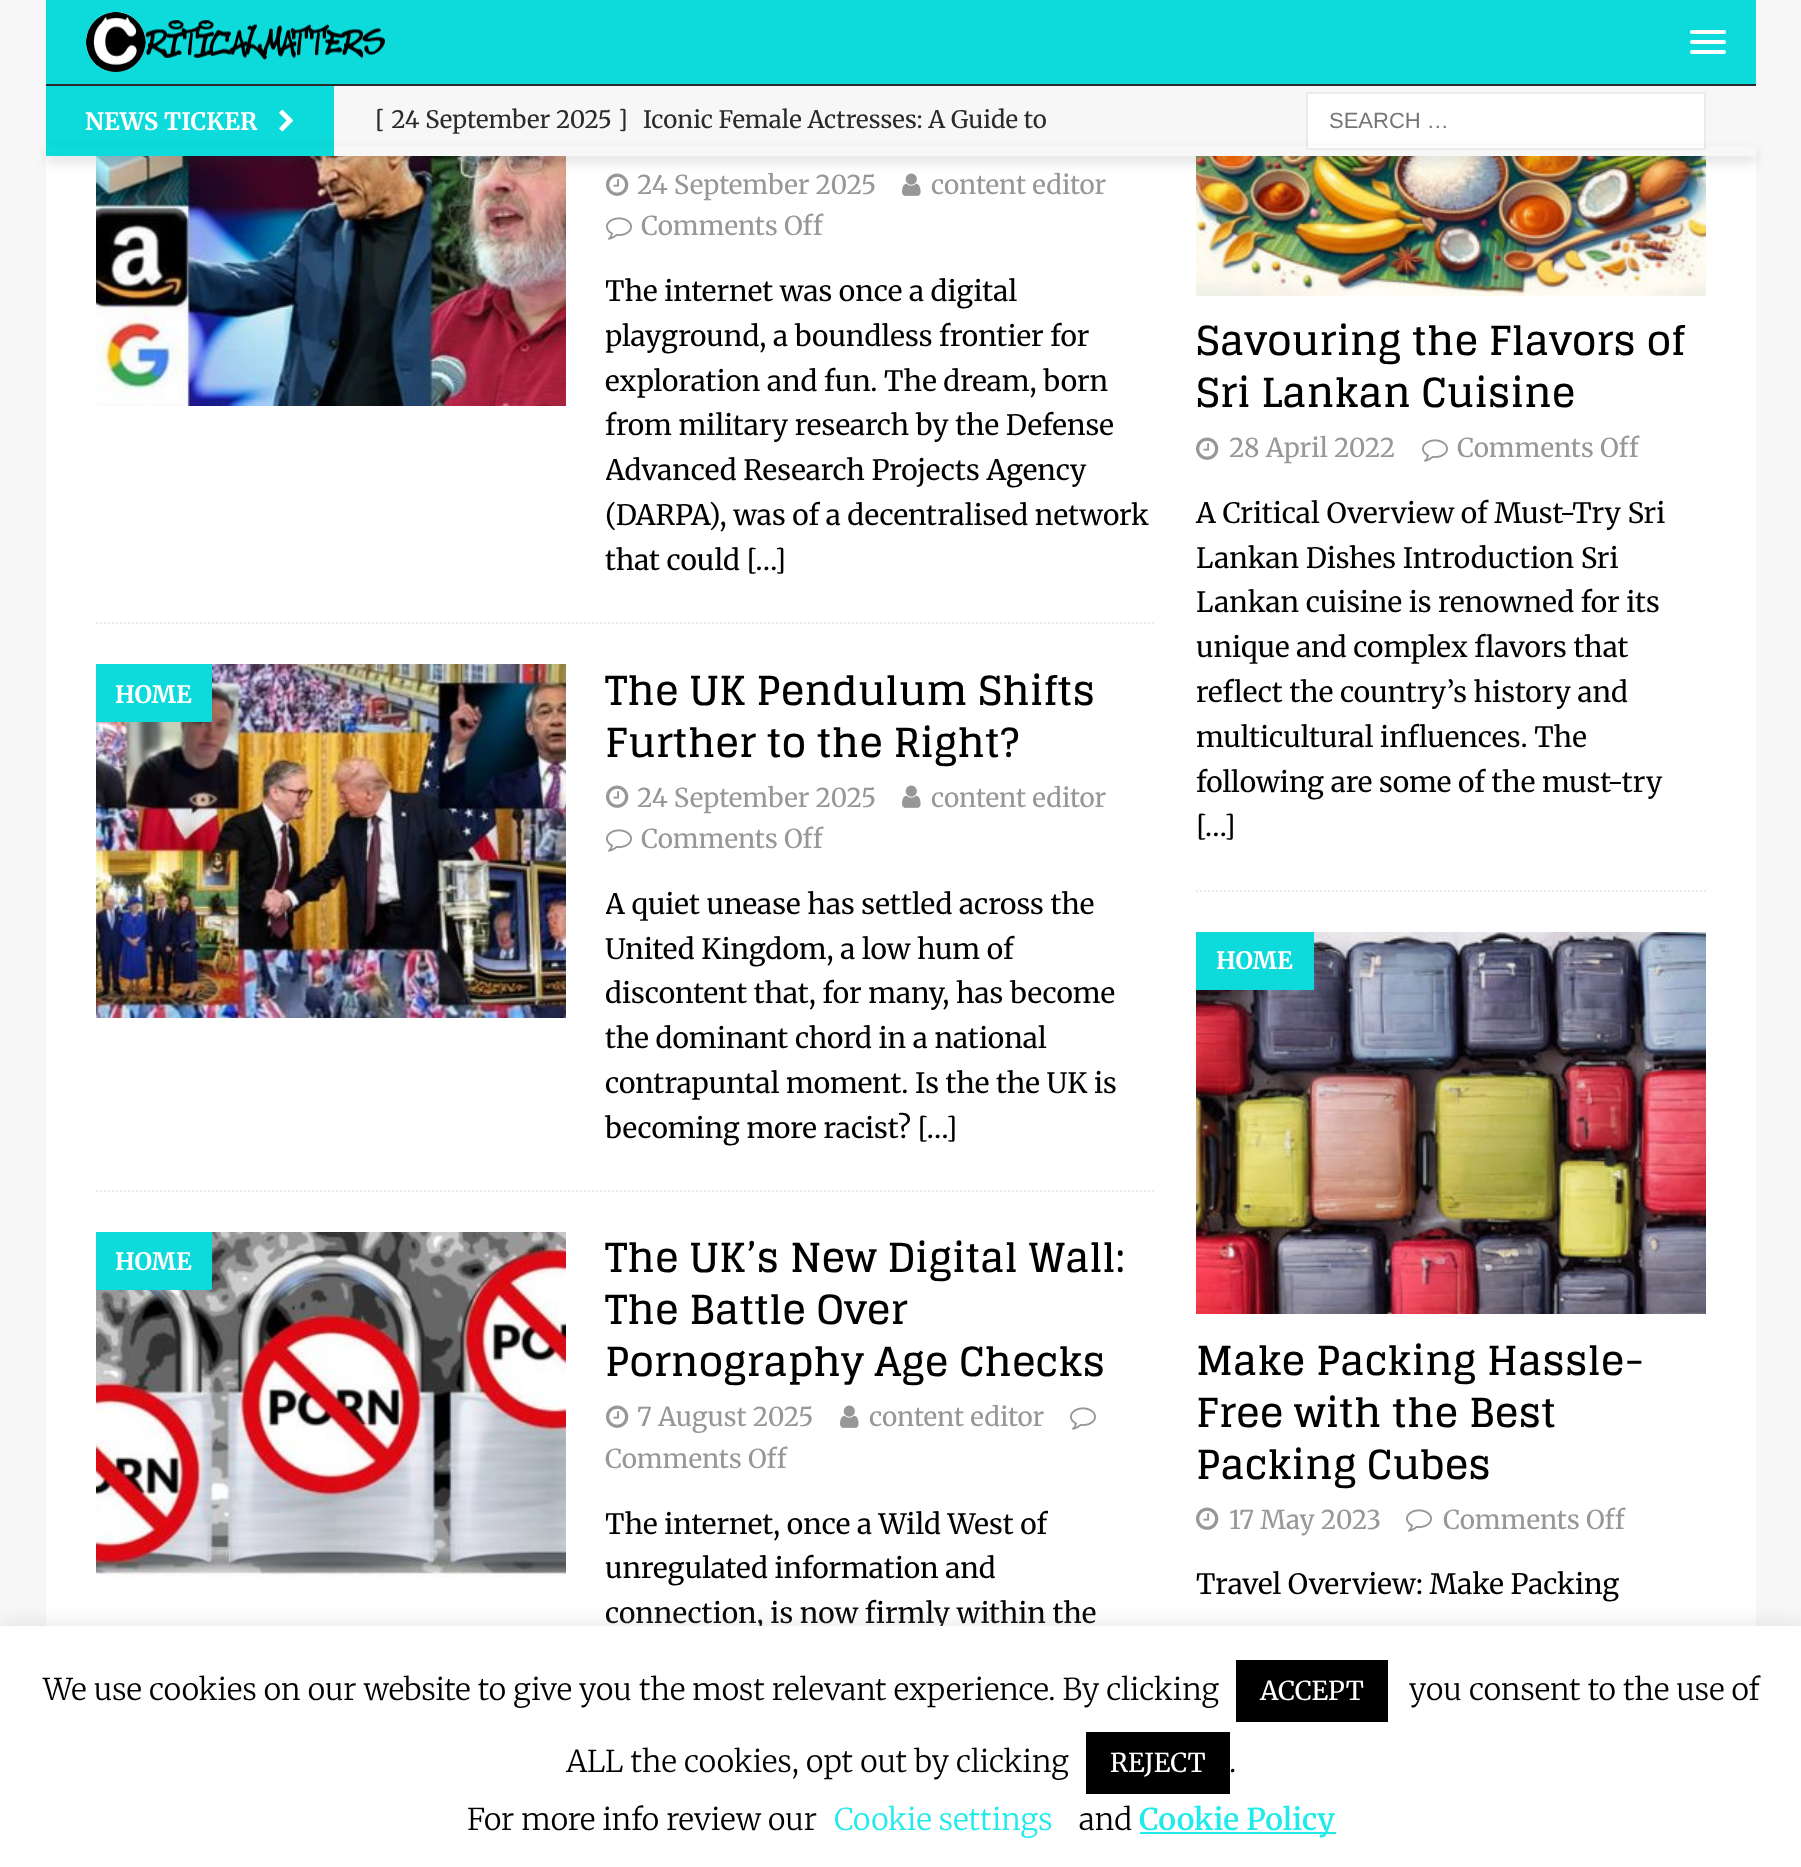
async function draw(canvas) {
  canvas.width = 1801
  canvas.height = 1867
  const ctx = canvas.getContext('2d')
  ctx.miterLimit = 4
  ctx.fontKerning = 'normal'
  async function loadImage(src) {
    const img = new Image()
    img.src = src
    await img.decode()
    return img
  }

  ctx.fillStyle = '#f7f7f7'
  ctx.fillRect(0, 0, 1801, 1867)
  ctx.fillStyle = '#0ddada'
  ctx.fillRect(46, 0, 1710, 84)
  ctx.fillStyle = '#2a2a2a'
  ctx.fillRect(46, 84, 1710, 2)
  ctx.fillStyle = '#fff'
  ctx.beginPath()
  ctx.roundRect(1690, 30, 36, 4, 2)
  ctx.fill()
  ctx.beginPath()
  ctx.roundRect(1690, 40, 36, 4, 2)
  ctx.fill()
  ctx.beginPath()
  ctx.roundRect(1690, 50, 36, 4, 2)
  ctx.fill()
  ctx.drawImage(await loadImage('image0.png'), 86, 12, 299, 60)
  ctx.fillStyle = '#0ddada'
  ctx.fillRect(46, 86, 288, 70)
  ctx.font = 'bold 24px Merriweather'
  ctx.fillStyle = '#fff'
  ctx.fillText('NEWS TICKER', 85, 130)
  ctx.drawImage(await loadImage('image1.png'), 279, 109, 14, 23)
  ctx.font = '24px Merriweather'
  ctx.fillStyle = '#2a2a2a'
  ctx.fillText('[ 24 September 2025 ]', 375, 128)
  ctx.fillText('Iconic Female Actresses: A Guide to', 643, 128)
  ctx.fillStyle = '#fff'
  ctx.beginPath()
  ctx.rect(1307, 93, 398, 56)
  ctx.fill()
  ctx.strokeStyle = '#ebebeb'
  ctx.lineWidth = 2
  ctx.stroke()
  ctx.font = '22px Liberation Sans'
  ctx.fillStyle = '#757575'
  ctx.fillText('SEARCH …', 1329, 128)
  ctx.fillStyle = '#fff'
  ctx.fillRect(46, 156, 1710, 1470)
  ctx.drawImage(await loadImage('image2.png'), 96, 156, 470, 250)
  ctx.drawImage(await loadImage('image3.png'), 606, 173, 23, 23)
  ctx.drawImage(await loadImage('image4.png'), 902, 173, 19, 23)
  ctx.drawImage(await loadImage('image8.png'), 1196, 156, 510, 140)
  ctx.save()
  ctx.beginPath()
  ctx.moveTo(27, 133)
  ctx.lineTo(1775, 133)
  ctx.lineTo(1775, 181)
  ctx.lineTo(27, 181)
  ctx.closePath()
  ctx.moveTo(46, 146)
  ctx.lineTo(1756, 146)
  ctx.lineTo(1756, 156)
  ctx.lineTo(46, 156)
  ctx.closePath()
  ctx.clip('evenodd')
  ctx.fillStyle = '#31313129'
  ctx.filter = 'blur(6px)'
  ctx.beginPath()
  ctx.rect(46, 152, 1710, 10)
  ctx.fill()
  ctx.filter = 'none'
  ctx.restore()
  ctx.beginPath()
  ctx.moveTo(96, 623)
  ctx.lineTo(1156, 623)
  ctx.setLineDash([2, 2])
  ctx.stroke()
  ctx.font = '26px Merriweather'
  ctx.fillStyle = '#979797'
  ctx.fillText('24 September 2025', 637, 194)
  ctx.fillText('content editor', 931, 194)
  ctx.drawImage(await loadImage('image5.png'), 606, 217, 26, 23)
  ctx.fillText('Comments Off', 641, 235)
  ctx.save()
  ctx.beginPath()
  ctx.rect(606, 270, 550, 312)
  ctx.clip()
  ctx.font = '28px Merriweather'
  ctx.fillStyle = '#000'
  ctx.fillText('The internet was once a digital', 605, 301)
  ctx.fillText('playground, a boundless frontier for', 605, 346)
  ctx.restore()
  ctx.font = '28px Merriweather'
  ctx.fillStyle = '#000'
  ctx.fillText('exploration and fun. The dream, born', 605, 391)
  ctx.fillText('from military research by the Defense', 605, 435)
  ctx.save()
  ctx.beginPath()
  ctx.rect(606, 270, 550, 312)
  ctx.clip()
  ctx.fillText('Advanced Research Projects Agency', 605, 480)
  ctx.restore()
  ctx.fillText('(DARPA), was of a decentralised network', 605, 525)
  ctx.fillText('that could […]', 605, 570)
  ctx.beginPath()
  ctx.moveTo(96, 1191)
  ctx.lineTo(1156, 1191)
  ctx.stroke()
  ctx.drawImage(await loadImage('image6.png'), 96, 664, 470, 354)
  ctx.fillStyle = '#0ddada'
  ctx.fillRect(96, 664, 116, 58)
  ctx.font = 'bold 24px Merriweather'
  ctx.fillStyle = '#fff'
  ctx.fillText('HOME', 115, 703)
  ctx.font = 'bold 40px Glegoo'
  ctx.fillStyle = '#000'
  ctx.fillText('The UK Pendulum Shifts', 605, 705)
  ctx.fillText('Further to the Right?', 605, 757)
  ctx.drawImage(await loadImage('image3.png'), 606, 785, 23, 23)
  ctx.font = '26px Merriweather'
  ctx.fillStyle = '#979797'
  ctx.fillText('24 September 2025', 637, 807)
  ctx.drawImage(await loadImage('image4.png'), 902, 785, 19, 23)
  ctx.fillText('content editor', 931, 807)
  ctx.drawImage(await loadImage('image5.png'), 606, 829, 26, 23)
  ctx.fillText('Comments Off', 641, 848)
  ctx.save()
  ctx.beginPath()
  ctx.rect(606, 882, 550, 268)
  ctx.clip()
  ctx.font = '28px Merriweather'
  ctx.fillStyle = '#000'
  ctx.fillText('A quiet unease has settled across the', 605, 914)
  ctx.restore()
  ctx.font = '28px Merriweather'
  ctx.fillStyle = '#000'
  ctx.fillText('United Kingdom, a low hum of', 605, 959)
  ctx.fillText('discontent that, for many, has become', 605, 1003)
  ctx.fillText('the dominant chord in a national', 605, 1048)
  ctx.fillText('contrapuntal moment. Is the the UK is', 605, 1093)
  ctx.fillText('becoming more racist? […]', 605, 1138)
  ctx.drawImage(await loadImage('image7.png'), 96, 1232, 470, 347)
  ctx.fillStyle = '#0ddada'
  ctx.fillRect(96, 1232, 116, 58)
  ctx.font = 'bold 24px Merriweather'
  ctx.fillStyle = '#fff'
  ctx.fillText('HOME', 115, 1270)
  ctx.font = 'bold 40px Glegoo'
  ctx.fillStyle = '#000'
  ctx.fillText('The UK’s New Digital Wall:', 605, 1272)
  ctx.fillText('The Battle Over', 605, 1324)
  ctx.fillText('Pornography Age Checks', 605, 1376)
  ctx.drawImage(await loadImage('image3.png'), 606, 1405, 23, 23)
  ctx.font = '26px Merriweather'
  ctx.fillStyle = '#979797'
  ctx.fillText('7 August 2025', 637, 1426)
  ctx.drawImage(await loadImage('image4.png'), 840, 1405, 19, 23)
  ctx.fillText('content editor', 869, 1426)
  ctx.drawImage(await loadImage('image5.png'), 1070, 1407, 26, 23)
  ctx.fillText('Comments Off', 605, 1468)
  ctx.save()
  ctx.beginPath()
  ctx.rect(606, 1502, 550, 268)
  ctx.clip()
  ctx.font = '28px Merriweather'
  ctx.fillStyle = '#000'
  ctx.fillText('The internet, once a Wild West of', 605, 1534)
  ctx.restore()
  ctx.font = '28px Merriweather'
  ctx.fillStyle = '#000'
  ctx.fillText('unregulated information and', 605, 1578)
  ctx.fillText('connection, is now firmly within the', 605, 1623)
  ctx.beginPath()
  ctx.moveTo(1196, 891)
  ctx.lineTo(1706, 891)
  ctx.stroke()
  ctx.font = 'bold 40px Glegoo'
  ctx.fillText('Savouring the Flavors of', 1196, 355)
  ctx.fillText('Sri Lankan Cuisine', 1196, 407)
  ctx.drawImage(await loadImage('image3.png'), 1196, 437, 23, 23)
  ctx.font = '26px Merriweather'
  ctx.fillStyle = '#979797'
  ctx.fillText('28 April 2022', 1229, 457)
  ctx.drawImage(await loadImage('image5.png'), 1422, 439, 26, 23)
  ctx.fillText('Comments Off', 1457, 457)
  ctx.font = '28px Merriweather'
  ctx.fillStyle = '#000'
  ctx.fillText('A Critical Overview of Must-Try Sri', 1196, 523)
  ctx.fillText('Lankan Dishes Introduction Sri', 1196, 568)
  ctx.fillText('Lankan cuisine is renowned for its', 1196, 612)
  ctx.fillText('unique and complex flavors that', 1196, 657)
  ctx.fillText('reflect the country’s history and', 1196, 702)
  ctx.fillText('multicultural influences. The', 1196, 747)
  ctx.fillText('following are some of the must-try', 1196, 792)
  ctx.fillText('[…]', 1196, 836)
  ctx.drawImage(await loadImage('image9.png'), 1196, 932, 510, 382)
  ctx.fillStyle = '#0ddada'
  ctx.fillRect(1196, 932, 118, 58)
  ctx.font = 'bold 24px Merriweather'
  ctx.fillStyle = '#fff'
  ctx.fillText('HOME', 1216, 969)
  ctx.font = 'bold 40px Glegoo'
  ctx.fillStyle = '#000'
  ctx.fillText('Make Packing Hassle-', 1196, 1375)
  ctx.fillText('Free with the Best', 1196, 1427)
  ctx.fillText('Packing Cubes', 1196, 1479)
  ctx.drawImage(await loadImage('image3.png'), 1196, 1507, 23, 23)
  ctx.font = '26px Merriweather'
  ctx.fillStyle = '#979797'
  ctx.fillText('17 May 2023', 1229, 1529)
  ctx.drawImage(await loadImage('image5.png'), 1406, 1509, 26, 23)
  ctx.fillText('Comments Off', 1443, 1529)
  ctx.font = '28px Merriweather'
  ctx.fillStyle = '#000'
  ctx.fillText('Travel Overview: Make Packing', 1196, 1594)
  ctx.fillStyle = '#acabab4d'
  ctx.filter = 'blur(10px)'
  ctx.beginPath()
  ctx.rect(0, 1624, 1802, 242)
  ctx.fill()
  ctx.filter = 'none'
  ctx.fillStyle = '#fff'
  ctx.fillRect(0, 1626, 1801, 241)
  ctx.font = '300 30px Merriweather'
  ctx.fillStyle = '#000'
  ctx.fillText('We use cookies on our website to give you the most relevant experience. By clicking', 43, 1700)
  ctx.fillRect(1236, 1660, 152, 62)
  ctx.font = '26px Merriweather'
  ctx.fillStyle = '#fff'
  ctx.fillText('ACCEPT', 1260, 1700)
  ctx.font = '300 30px Merriweather'
  ctx.fillStyle = '#000'
  ctx.fillText('you consent to the use of', 1409, 1700)
  ctx.fillText('ALL the cookies, opt out by clicking', 566, 1772)
  ctx.fillRect(1086, 1732, 144, 62)
  ctx.font = '26px Merriweather'
  ctx.fillStyle = '#fff'
  ctx.fillText('REJECT', 1110, 1772)
  ctx.font = '300 30px Merriweather'
  ctx.fillStyle = '#000'
  ctx.fillText('.', 1229, 1772)
  ctx.fillText('For more info review our', 467, 1830)
  ctx.fillStyle = '#20eaea'
  ctx.fillText('Cookie settings', 834, 1830)
  ctx.fillStyle = '#000'
  ctx.fillText('and', 1079, 1830)
  ctx.fillStyle = '#20eaea'
  ctx.fillRect(1140, 1832, 196, 2)
  ctx.font = '600 30px Merriweather'
  ctx.fillText('Cookie Policy', 1139, 1830)
}

draw(document.querySelector('canvas'))
